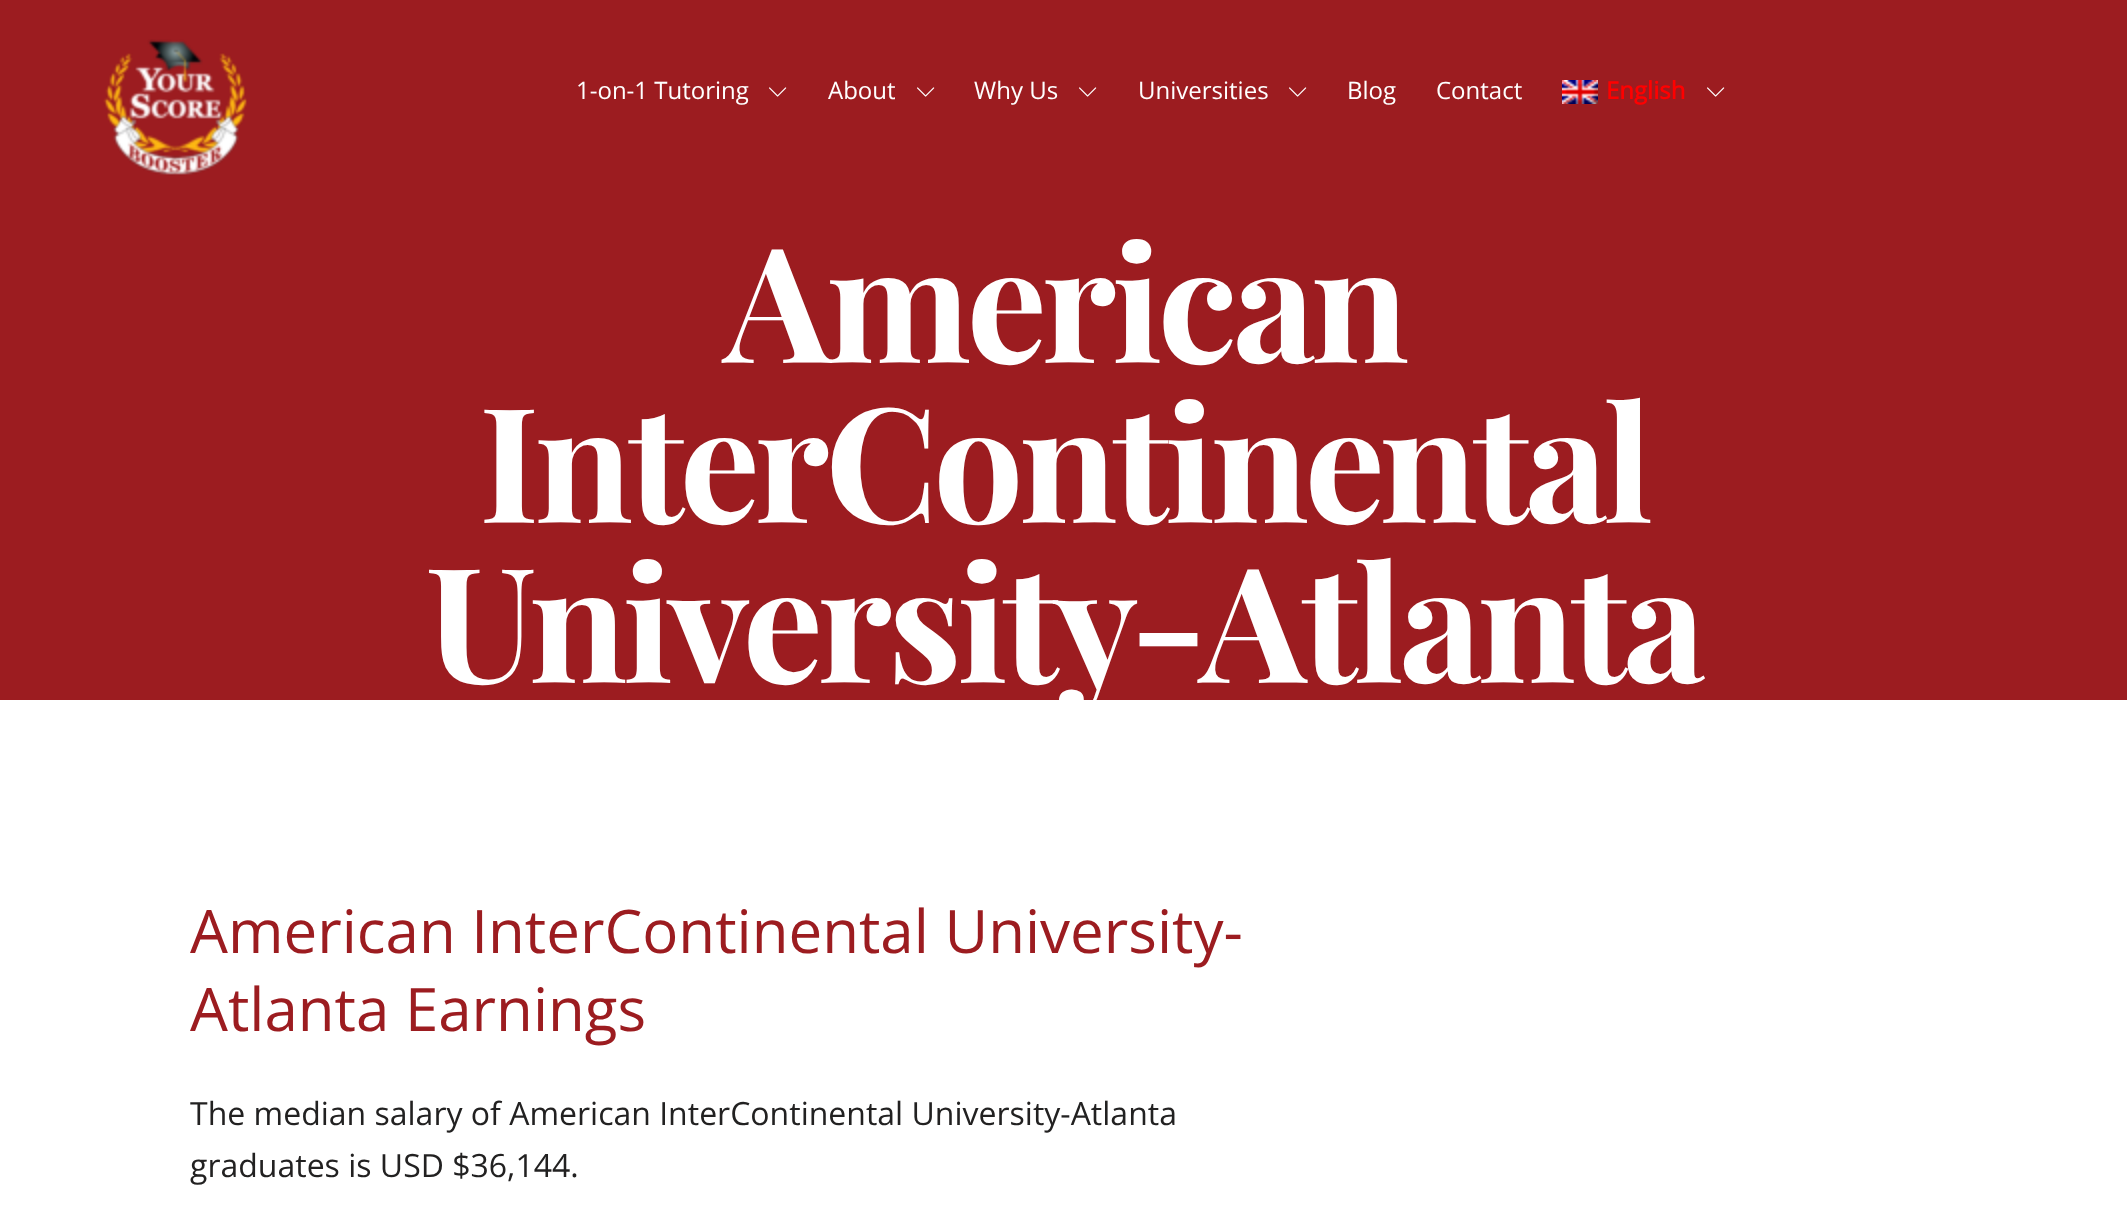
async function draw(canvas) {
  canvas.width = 2127
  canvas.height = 1216
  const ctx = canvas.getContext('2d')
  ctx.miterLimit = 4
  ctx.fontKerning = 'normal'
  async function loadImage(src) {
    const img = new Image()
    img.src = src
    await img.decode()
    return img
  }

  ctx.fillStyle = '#fff'
  ctx.fillRect(0, 0, 2127, 1216)
  ctx.fillStyle = '#9c1c20'
  ctx.fillRect(0, 0, 2127, 700)
  ctx.drawImage(await loadImage('image0.png'), 103, 39, 144, 137)
  ctx.font = '24px Open Sans'
  ctx.fillStyle = '#fff'
  ctx.fillText('1-on-1 Tutoring', 576, 99)
  ctx.drawImage(await loadImage('image1.png'), 769, 87, 18, 10)
  ctx.fillText('About', 828, 99)
  ctx.drawImage(await loadImage('image1.png'), 917, 87, 18, 10)
  ctx.fillText('Why Us', 974, 99)
  ctx.drawImage(await loadImage('image1.png'), 1079, 87, 18, 10)
  ctx.fillText('Universities', 1138, 99)
  ctx.drawImage(await loadImage('image1.png'), 1289, 87, 18, 10)
  ctx.fillText('Blog', 1347, 99)
  ctx.fillText('Contact', 1436, 99)
  ctx.drawImage(await loadImage('image2.png'), 1562, 80, 36, 24)
  ctx.font = 'bold 24px Open Sans'
  ctx.fillStyle = '#f00'
  ctx.fillText('English', 1606, 99)
  ctx.drawImage(await loadImage('image1.png'), 1707, 87, 18, 10)
  ctx.letterSpacing = '-4.5px'
  ctx.font = 'bold 160px Playfair Display'
  ctx.fillStyle = '#fff'
  ctx.fillText('American', 724, 363)
  ctx.fillText('InterContinental', 479, 523)
  ctx.fillText('University-Atlanta', 426, 683)
  ctx.letterSpacing = '0px'
  ctx.font = '60px Open Sans'
  ctx.fillStyle = '#9c1c20'
  ctx.fillText('American InterContinental University-', 190, 953)
  ctx.fillText('Atlanta Earnings', 190, 1031)
  ctx.font = '32px Open Sans'
  ctx.fillStyle = '#222121'
  ctx.fillText('The median salary of American InterContinental University-Atlanta', 190, 1125)
  ctx.fillText('graduates is USD $36,144.', 190, 1177)
}

draw(document.querySelector('canvas'))
